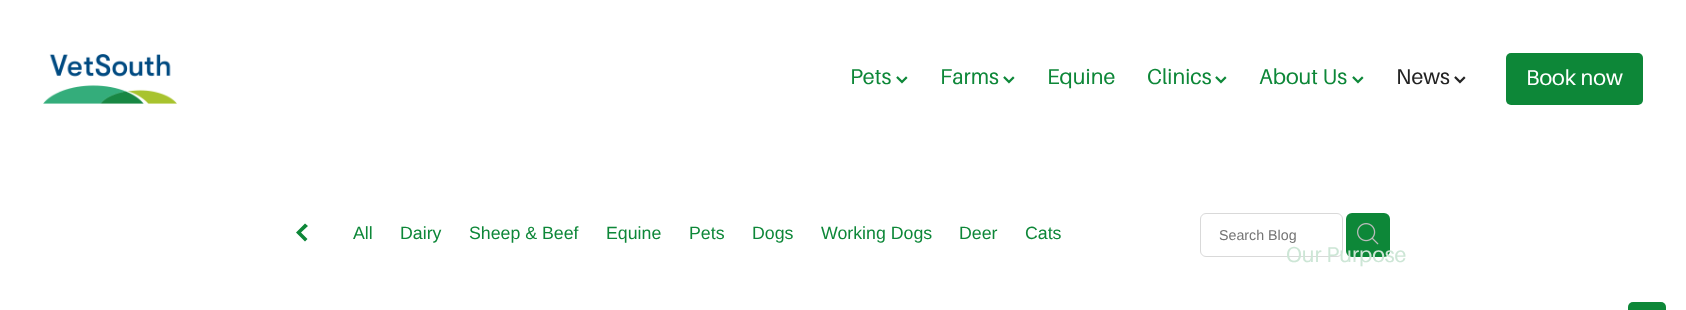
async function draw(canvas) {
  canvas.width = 1686
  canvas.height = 310
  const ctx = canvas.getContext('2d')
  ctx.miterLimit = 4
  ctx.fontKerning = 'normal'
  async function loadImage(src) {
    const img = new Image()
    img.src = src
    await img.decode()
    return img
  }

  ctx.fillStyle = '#fff'
  ctx.fillRect(0, 0, 1686, 310)
  ctx.drawImage(await loadImage('image0.png'), 43, 54, 134, 50)
  ctx.font = '21.5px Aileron'
  ctx.fillStyle = '#0d8738'
  ctx.fillText('Pets', 850, 84)
  ctx.drawImage(await loadImage('image1.png'), 896, 76, 12, 8)
  ctx.fillText('Farms', 940, 84)
  ctx.drawImage(await loadImage('image1.png'), 1003, 76, 12, 8)
  ctx.fillText('Equine', 1047, 84)
  ctx.fillText('Clinics', 1147, 84)
  ctx.drawImage(await loadImage('image1.png'), 1215, 76, 12, 8)
  ctx.fillText('About Us', 1259, 84)
  ctx.drawImage(await loadImage('image1.png'), 1352, 76, 12, 8)
  ctx.beginPath()
  ctx.roundRect(1200.5, 213.5, 142, 43, 5.5)
  ctx.strokeStyle = '#d9d9d9'
  ctx.stroke()
  ctx.beginPath()
  ctx.roundRect(1346, 213, 44, 44, 6)
  ctx.fill()
  ctx.fillStyle = '#cde6d6'
  ctx.fillText('Our Purpose', 1286, 262)
  ctx.fillStyle = '#232323'
  ctx.fillText('News', 1396, 84)
  ctx.drawImage(await loadImage('image2.png'), 1454, 76, 12, 8)
  ctx.fillStyle = '#0d8738'
  ctx.beginPath()
  ctx.roundRect(1506, 53, 137, 52, 5)
  ctx.fill()
  ctx.fillStyle = '#fff'
  ctx.fillText('Book now', 1526, 85)
  ctx.fillStyle = '#0d8738'
  ctx.beginPath()
  ctx.moveTo(305, 241.5)
  ctx.lineTo(307.5, 239)
  ctx.lineTo(301, 232.5)
  ctx.lineTo(308, 226)
  ctx.lineTo(305, 223.5)
  ctx.lineTo(296, 232.5)
  ctx.closePath()
  ctx.fill()
  ctx.font = '17.75px Arimo'
  ctx.fillText('All', 353, 239)
  ctx.fillText('Dairy', 400, 239)
  ctx.fillText('Sheep & Beef', 469, 239)
  ctx.fillText('Equine', 606, 239)
  ctx.fillText('Pets', 689, 239)
  ctx.fillText('Dogs', 752, 239)
  ctx.fillText('Working Dogs', 821, 239)
  ctx.fillText('Deer', 959, 239)
  ctx.fillText('Cats', 1025, 239)
  ctx.font = '14.25px Arimo'
  ctx.fillStyle = '#757575'
  ctx.fillText('Search Blog', 1219, 240)
  ctx.drawImage(await loadImage('image3.png'), 1357, 223, 22, 22)
  ctx.fillStyle = '#0d8738'
  ctx.beginPath()
  ctx.roundRect(1628, 302, 38, 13, 5)
  ctx.fill()
}

draw(document.querySelector('canvas'))
